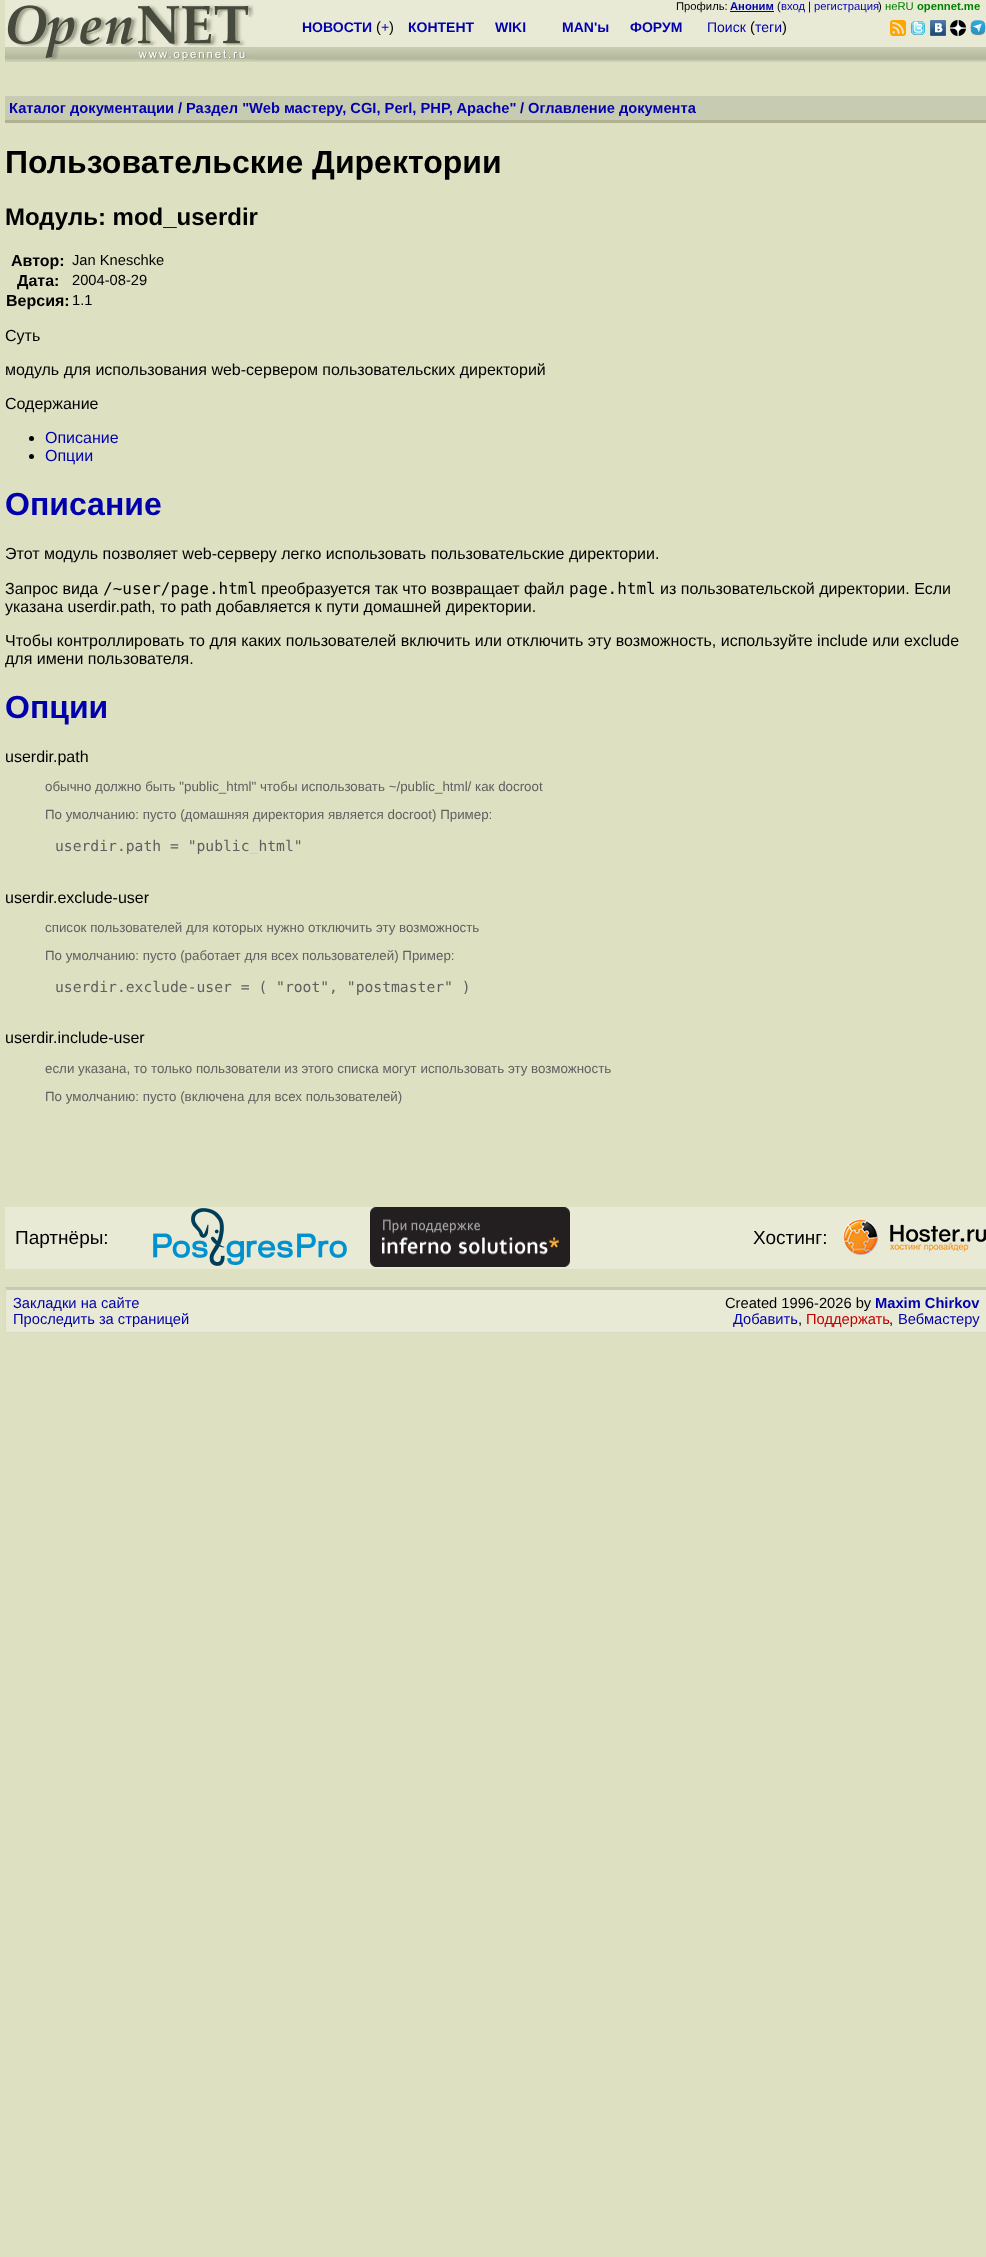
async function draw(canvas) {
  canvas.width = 986
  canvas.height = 2257
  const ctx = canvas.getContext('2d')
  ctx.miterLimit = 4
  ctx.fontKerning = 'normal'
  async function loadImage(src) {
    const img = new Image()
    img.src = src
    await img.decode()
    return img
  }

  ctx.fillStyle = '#dde1c2'
  ctx.fillRect(0, 0, 986, 2257)
  ctx.fillStyle = '#e9ead6'
  ctx.fillRect(5, 0, 981, 2)
  ctx.fillRect(5, 2, 981, 45)
  ctx.font = '11.25px Liberation Sans'
  ctx.fillStyle = '#000'
  ctx.fillText('Профиль:', 676, 10)
  ctx.font = 'bold 11.25px Liberation Sans'
  ctx.fillStyle = '#0000ad'
  ctx.fillText('Аноним', 730, 10)
  ctx.fillRect(730, 11, 44, 1)
  ctx.font = '11.25px Liberation Sans'
  ctx.fillStyle = '#000'
  ctx.fillText('(', 777, 10)
  ctx.fillStyle = '#0000ad'
  ctx.fillText('вход', 781, 10)
  ctx.fillStyle = '#000'
  ctx.fillText('|', 808, 10)
  ctx.fillStyle = '#0000ad'
  ctx.fillText('регистрация', 814, 10)
  ctx.fillStyle = '#000'
  ctx.fillText(')', 878, 10)
  ctx.fillStyle = '#008000'
  ctx.fillText('неRU', 885, 10)
  ctx.font = 'bold 11.25px Liberation Sans'
  ctx.fillText('opennet.me', 917, 10)
  ctx.drawImage(await loadImage('image0.png'), 5, 47, 264, 15)
  ctx.drawImage(await loadImage('image1.png'), 5, 4, 249, 57)
  ctx.drawImage(await loadImage('image2.png'), 299, 47, 491, 15)
  ctx.font = 'bold 14px Liberation Sans'
  ctx.fillStyle = '#0000ad'
  ctx.fillText('НОВОСТИ', 302, 32)
  ctx.font = '14.7px Liberation Sans'
  ctx.fillStyle = '#000'
  ctx.fillText('(', 376, 32)
  ctx.font = '14px Liberation Sans'
  ctx.fillStyle = '#0000ad'
  ctx.fillText('+', 381, 32)
  ctx.font = '14.7px Liberation Sans'
  ctx.fillStyle = '#000'
  ctx.fillText(')', 389, 32)
  ctx.font = 'bold 14px Liberation Sans'
  ctx.fillStyle = '#0000ad'
  ctx.fillText('КОНТЕНТ', 408, 32)
  ctx.fillText('WIKI', 495, 32)
  ctx.fillText('MAN\'ы', 562, 32)
  ctx.fillText('ФОРУМ', 630, 32)
  ctx.font = '14px Liberation Sans'
  ctx.fillText('Поиск', 707, 32)
  ctx.font = '14.7px Liberation Sans'
  ctx.fillStyle = '#000'
  ctx.fillText('(', 750, 32)
  ctx.font = '14px Liberation Sans'
  ctx.fillStyle = '#0000ad'
  ctx.fillText('теги', 755, 32)
  ctx.font = '14.7px Liberation Sans'
  ctx.fillStyle = '#000'
  ctx.fillText(')', 782, 32)
  ctx.drawImage(await loadImage('image3.png'), 790, 47, 196, 15)
  ctx.drawImage(await loadImage('image4.png'), 890, 20, 16, 16)
  ctx.drawImage(await loadImage('image5.png'), 911, 21, 14, 14)
  ctx.drawImage(await loadImage('image6.png'), 930, 20, 16, 16)
  ctx.drawImage(await loadImage('image7.png'), 950, 20, 16, 16)
  ctx.drawImage(await loadImage('image8.png'), 970, 20, 16, 16)
  ctx.drawImage(await loadImage('image9.png'), 269, 47, 30, 15)
  ctx.fillStyle = '#c7cbb1'
  ctx.fillRect(5, 96, 981, 24)
  ctx.font = 'bold 14.7px Liberation Sans'
  ctx.fillStyle = '#0000ad'
  ctx.fillText('Каталог документации', 9, 113)
  ctx.fillStyle = '#000090'
  ctx.fillText('/', 178, 113)
  ctx.fillStyle = '#0000ad'
  ctx.fillText('Раздел "Web мастеру, CGI, Perl, PHP, Apache"', 186, 113)
  ctx.fillStyle = '#000090'
  ctx.fillText('/', 520, 113)
  ctx.fillStyle = '#0000ad'
  ctx.fillText('Оглавление документа', 528, 113)
  ctx.fillStyle = '#b0b190'
  ctx.fillRect(5, 120, 981, 3)
  ctx.font = 'bold 32px Liberation Sans'
  ctx.fillStyle = '#000'
  ctx.fillText('Пользовательские Директории', 5, 173)
  ctx.font = 'bold 24px Liberation Sans'
  ctx.fillText('Модуль: mod_userdir', 5, 225)
  ctx.font = 'bold 16px Liberation Sans'
  ctx.fillText('Автор:', 11, 266)
  ctx.font = '14.7px Liberation Sans'
  ctx.fillText('Jan Kneschke', 72, 265)
  ctx.font = 'bold 16px Liberation Sans'
  ctx.fillText('Дата:', 17, 286)
  ctx.font = '14.7px Liberation Sans'
  ctx.fillText('2004-08-29', 72, 285)
  ctx.font = 'bold 16px Liberation Sans'
  ctx.fillText('Версия:', 6, 306)
  ctx.font = '14.7px Liberation Sans'
  ctx.fillText('1.1', 72, 305)
  ctx.font = '16px Liberation Sans'
  ctx.fillText('Суть', 5, 341)
  ctx.fillText('модуль для использования web-сервером пользовательских директорий', 5, 375)
  ctx.fillText('Содержание', 5, 409)
  ctx.beginPath()
  ctx.arc(31.5, 438.5, 2.5, 0, 2 * Math.PI)
  ctx.fill()
  ctx.fillStyle = '#0000ad'
  ctx.fillText('Описание', 45, 443)
  ctx.fillStyle = '#000'
  ctx.beginPath()
  ctx.arc(31.5, 456.5, 2.5, 0, 2 * Math.PI)
  ctx.fill()
  ctx.fillStyle = '#0000ad'
  ctx.fillText('Опции', 45, 461)
  ctx.font = 'bold 32px Liberation Sans'
  ctx.fillText('Описание', 5, 515)
  ctx.font = '16px Liberation Sans'
  ctx.fillStyle = '#000'
  ctx.fillText('Этот модуль позволяет web-серверу легко использовать пользовательские директории.', 5, 559)
  ctx.fillText('Запрос вида', 5, 594)
  ctx.font = '16px DejaVu Sans Mono'
  ctx.fillText('/~user/page.html', 103, 594)
  ctx.font = '16px Liberation Sans'
  ctx.fillText('преобразуется так что возвращает файл', 261, 594)
  ctx.font = '16px DejaVu Sans Mono'
  ctx.fillText('page.html', 569, 594)
  ctx.font = '16px Liberation Sans'
  ctx.fillText('из пользовательской директории. Если', 660, 594)
  ctx.fillText('указана userdir.path, то path добавляется к пути домашней директории.', 5, 612)
  ctx.fillText('Чтобы контроллировать то для каких пользователей включить или отключить эту возможность, используйте include или exclude', 5, 646)
  ctx.fillText('для имени пользователя.', 5, 664)
  ctx.font = 'bold 32px Liberation Sans'
  ctx.fillStyle = '#0000ad'
  ctx.fillText('Опции', 5, 718)
  ctx.font = '16px Liberation Sans'
  ctx.fillStyle = '#000'
  ctx.fillText('userdir.path', 5, 762)
  ctx.font = '13.35px Liberation Sans'
  ctx.fillStyle = '#606060'
  ctx.fillText('обычно должно быть "public_html" чтобы использовать ~/public_html/ как docroot', 45, 791)
  ctx.fillText('По умолчанию: пусто (домашняя директория является docroot) Пример:', 45, 819)
  ctx.save()
  ctx.beginPath()
  ctx.rect(45, 837, 941, 17)
  ctx.clip()
  ctx.font = '14.7px DejaVu Sans Mono'
  ctx.fillText('userdir.path = "public_html"', 55, 851)
  ctx.restore()
  ctx.font = '16px Liberation Sans'
  ctx.fillStyle = '#000'
  ctx.fillText('userdir.exclude-user', 5, 903)
  ctx.font = '13.35px Liberation Sans'
  ctx.fillStyle = '#606060'
  ctx.fillText('список пользователей для которых нужно отключить эту возможность', 45, 932)
  ctx.fillText('По умолчанию: пусто (работает для всех пользователей) Пример:', 45, 960)
  ctx.font = '14.7px DejaVu Sans Mono'
  ctx.fillText('userdir.exclude-user = ( "root", "postmaster" )', 55, 992)
  ctx.font = '16px Liberation Sans'
  ctx.fillStyle = '#000'
  ctx.fillText('userdir.include-user', 5, 1043)
  ctx.font = '13.35px Liberation Sans'
  ctx.fillStyle = '#606060'
  ctx.fillText('если указана, то только пользователи из этого списка могут использовать эту возможность', 45, 1073)
  ctx.fillText('По умолчанию: пусто (включена для всех пользователей)', 45, 1101)
  ctx.fillStyle = '#e9ead6'
  ctx.fillRect(5, 1207, 981, 62)
  ctx.font = '19px Liberation Sans'
  ctx.fillStyle = '#000'
  ctx.fillText('Партнёры:', 15, 1244)
  ctx.drawImage(await loadImage('image10.png'), 153, 1208, 194, 58)
  ctx.drawImage(await loadImage('image11.png'), 370, 1207, 200, 60)
  ctx.fillText('Хостинг:', 753, 1244)
  ctx.drawImage(await loadImage('image12.png'), 843, 1219, 143, 36)
  ctx.fillStyle = '#e9ead6'
  ctx.fillRect(5, 1287, 981, 45)
  ctx.fillStyle = '#c9cab6'
  ctx.beginPath()
  ctx.moveTo(5, 1287)
  ctx.lineTo(986, 1287)
  ctx.lineTo(986, 1290)
  ctx.lineTo(6, 1290)
  ctx.closePath()
  ctx.fill()
  ctx.fillStyle = '#d9dac6'
  ctx.fillRect(5, 1332, 981, 1)
  ctx.beginPath()
  ctx.moveTo(5, 1333)
  ctx.lineTo(5, 1287)
  ctx.lineTo(6, 1290)
  ctx.lineTo(6, 1332)
  ctx.closePath()
  ctx.fill()
  ctx.font = '14.7px Liberation Sans'
  ctx.fillStyle = '#0000ad'
  ctx.fillText('Закладки на сайте', 13, 1308)
  ctx.fillText('Проследить за страницей', 13, 1324)
  ctx.fillStyle = '#000'
  ctx.fillText('Created 1996-2026 by', 725, 1308)
  ctx.font = 'bold 14.7px Liberation Sans'
  ctx.fillStyle = '#0000ad'
  ctx.fillText('Maxim Chirkov', 875, 1308)
  ctx.font = '14.7px Liberation Sans'
  ctx.fillText('Добавить', 733, 1324)
  ctx.fillStyle = '#000'
  ctx.fillText(',', 798, 1324)
  ctx.fillStyle = '#c00000'
  ctx.fillText('Поддержать', 806, 1324)
  ctx.fillStyle = '#000'
  ctx.fillText(',', 889, 1324)
  ctx.fillStyle = '#0000ad'
  ctx.fillText('Вебмастеру', 898, 1324)
}

draw(document.querySelector('canvas'))
